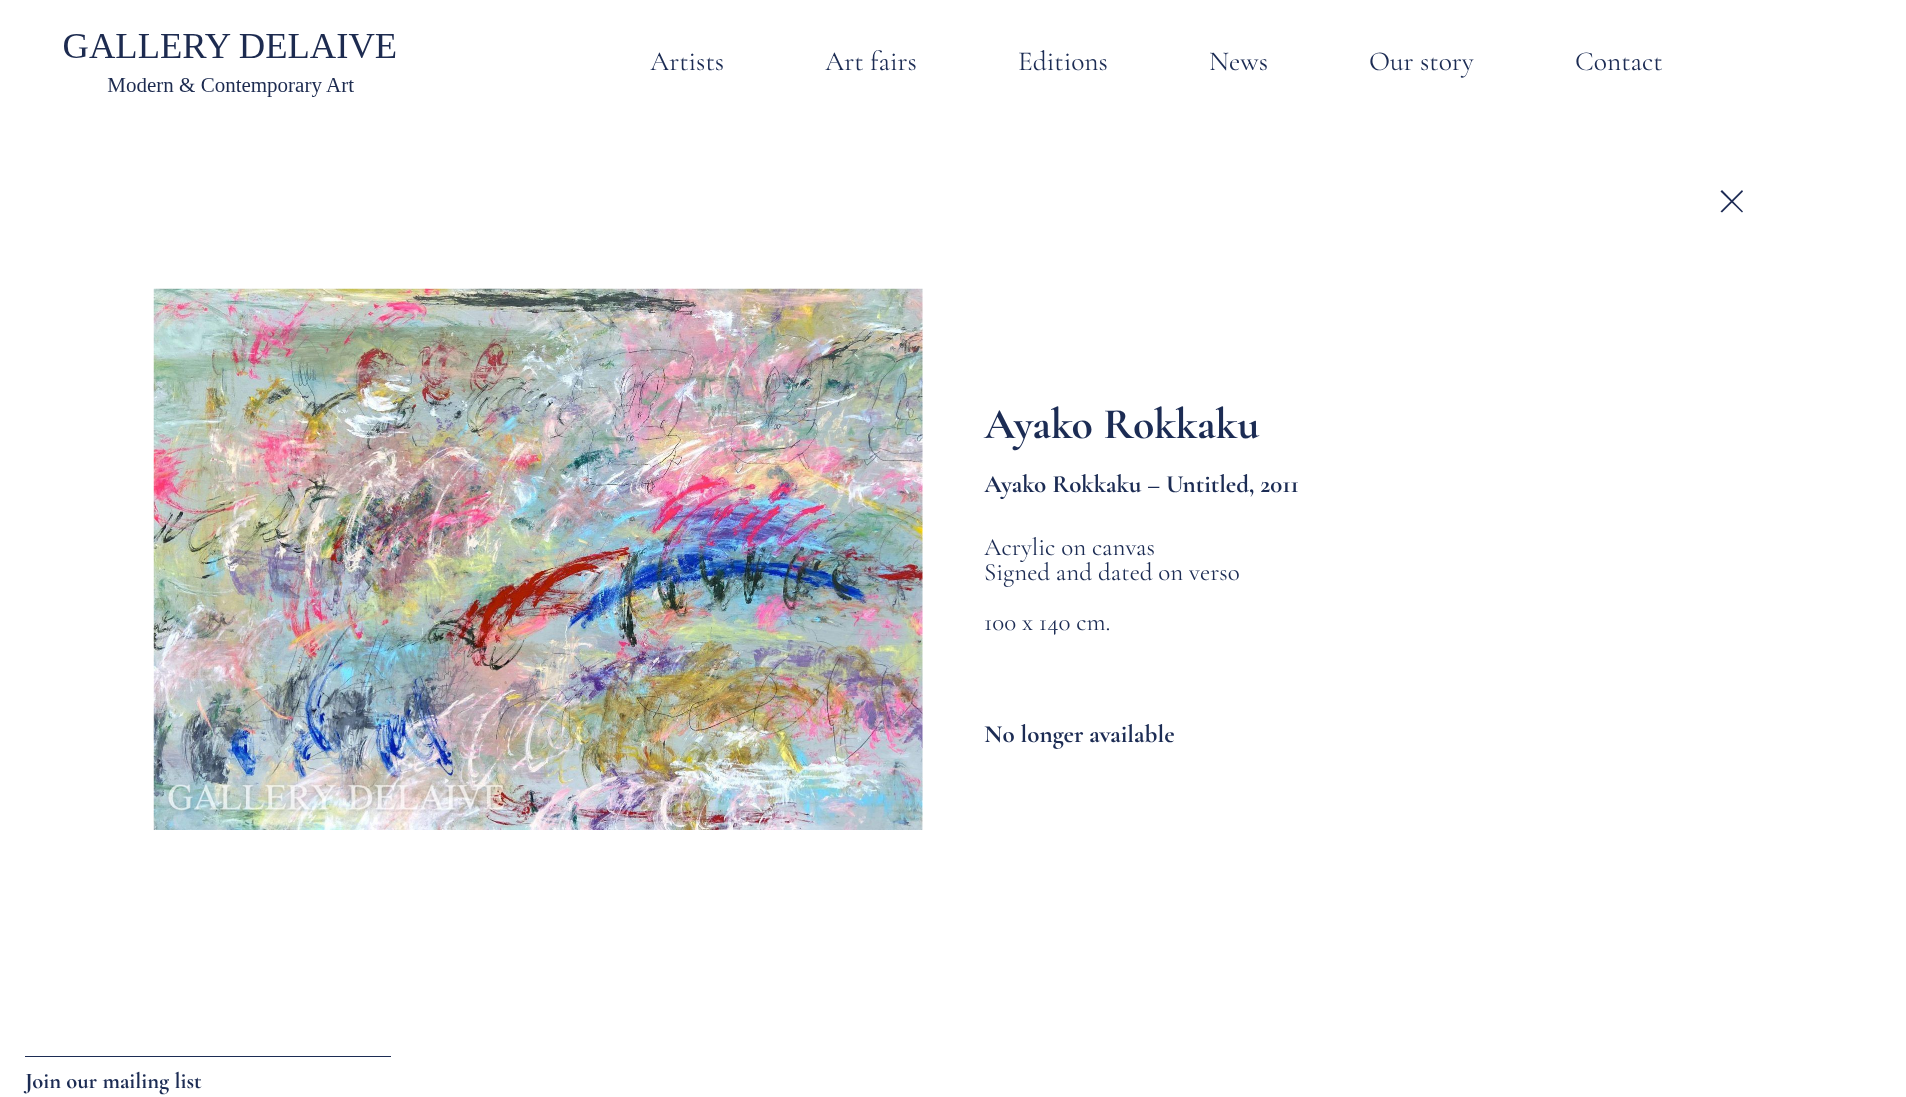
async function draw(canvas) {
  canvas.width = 1906
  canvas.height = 1097
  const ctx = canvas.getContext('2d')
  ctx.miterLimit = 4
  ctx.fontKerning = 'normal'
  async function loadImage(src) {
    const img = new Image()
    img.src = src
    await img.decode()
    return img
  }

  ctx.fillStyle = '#fff'
  ctx.fillRect(0, 0, 1906, 1097)
  ctx.drawImage(await loadImage('image0.png'), 64, 34, 332, 63)
  ctx.font = '27.5px Cormorant Garamond'
  ctx.fillStyle = '#1c2c54'
  ctx.fillText('Artists', 650, 70)
  ctx.fillText('Art fairs', 825, 70)
  ctx.fillText('Editions', 1018, 70)
  ctx.fillText('News', 1209, 70)
  ctx.fillText('Our story', 1369, 70)
  ctx.fillText('Contact', 1575, 70)
  ctx.drawImage(await loadImage('image1.png'), 153, 288, 770, 542)
  ctx.fillStyle = '#1d2b54'
  ctx.beginPath()
  ctx.moveTo(1722, 190)
  ctx.lineTo(1743, 211.5)
  ctx.lineTo(1742, 212.5)
  ctx.lineTo(1720.5, 191.5)
  ctx.closePath()
  ctx.fill()
  ctx.beginPath()
  ctx.moveTo(1720.5, 211.5)
  ctx.lineTo(1742, 190)
  ctx.lineTo(1743, 191.5)
  ctx.lineTo(1722, 212.5)
  ctx.closePath()
  ctx.fill()
  ctx.font = 'bold 43.75px Cormorant Garamond'
  ctx.fillStyle = '#1c2c54'
  ctx.fillText('Ayako Rokkaku', 984, 438)
  ctx.font = 'bold 25px Cormorant Garamond'
  ctx.fillText('Ayako Rokkaku – Untitled, 2011', 984, 492)
  ctx.font = '25px Cormorant Garamond'
  ctx.fillText('Acrylic on canvas', 984, 555)
  ctx.fillText('Signed and dated on verso', 984, 580)
  ctx.fillText('100 x 140 cm.', 984, 630)
  ctx.font = 'bold 25px Cormorant Garamond'
  ctx.fillText('No longer available', 984, 742)
  ctx.fillRect(25, 1056, 366, 1)
  ctx.font = 'bold 22.5px Cormorant Garamond'
  ctx.fillText('Join our mailing list', 25, 1088)
}

draw(document.querySelector('canvas'))
